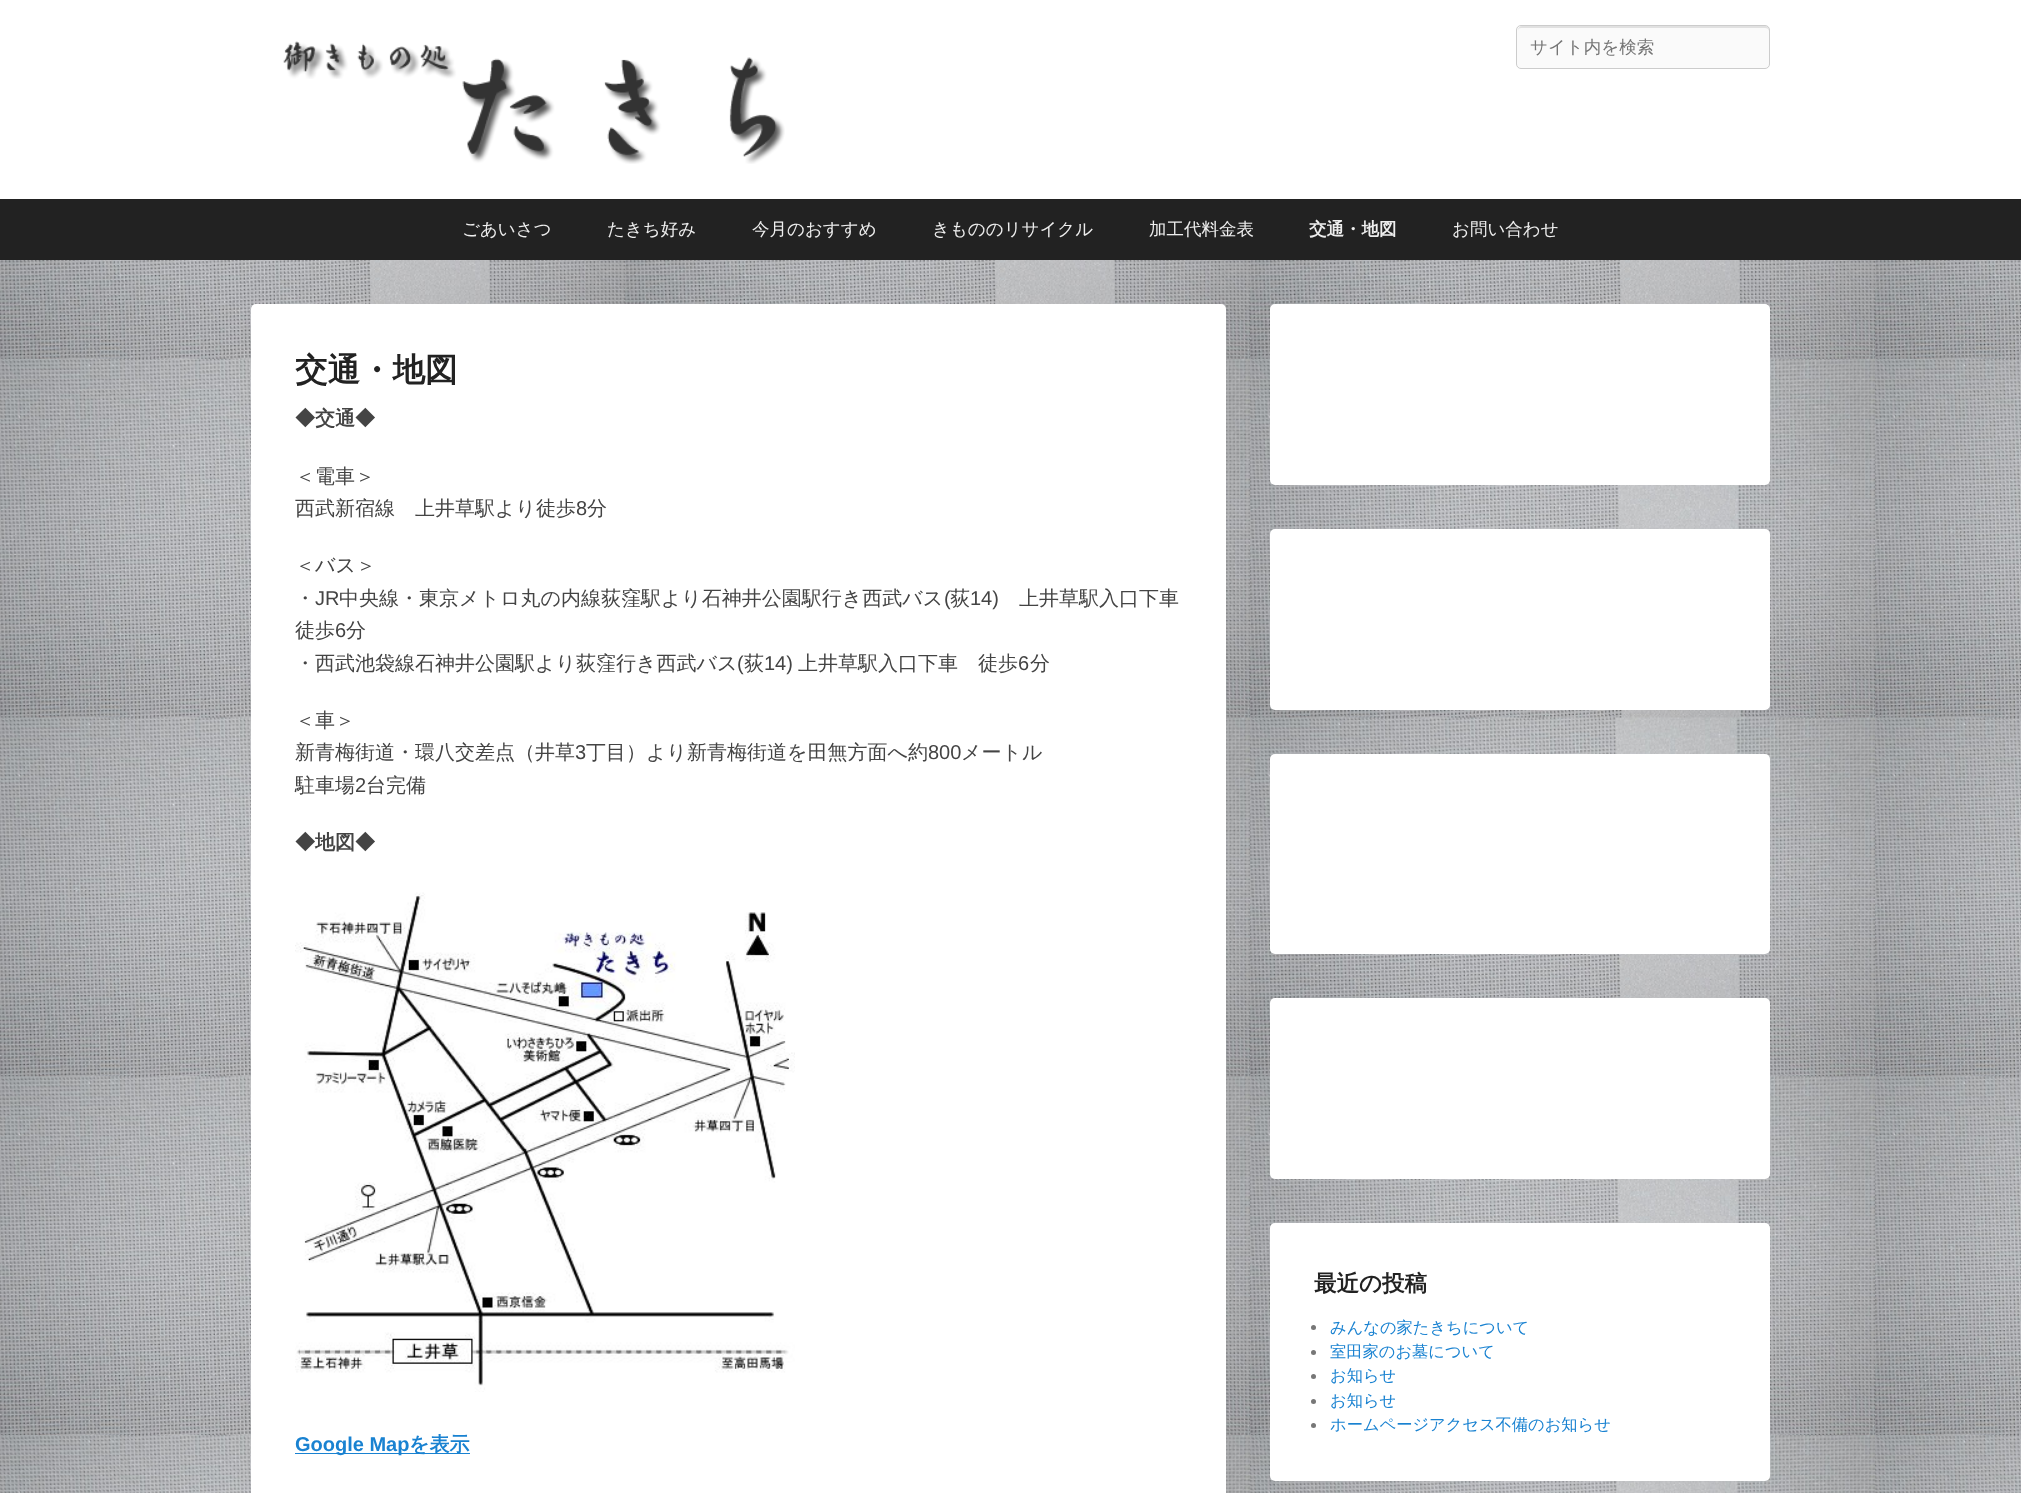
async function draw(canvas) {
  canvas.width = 2021
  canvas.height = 1493
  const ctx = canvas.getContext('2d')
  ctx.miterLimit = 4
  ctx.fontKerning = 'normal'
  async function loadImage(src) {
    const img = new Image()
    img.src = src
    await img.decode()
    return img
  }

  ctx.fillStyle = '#fff'
  ctx.fillRect(0, 0, 2021, 1493)
  ctx.drawImage(await loadImage('image0.png'), 0, 260, 2021, 1233)
  ctx.drawImage(await loadImage('image1.png'), 283, 41, 502, 123)
  ctx.fillStyle = '#fafafa'
  ctx.beginPath()
  ctx.roundRect(1516, 25, 254, 44, 5)
  ctx.fill()
  ctx.fillStyle = '#e1e1e1'
  ctx.beginPath()
  ctx.moveTo(1521, 28)
  ctx.lineTo(1765, 28)
  ctx.bezierCurveTo(1767, 28, 1769, 29, 1769, 31)
  ctx.lineTo(1769, 30)
  ctx.bezierCurveTo(1769, 28, 1767, 26, 1765, 26)
  ctx.lineTo(1522, 26)
  ctx.bezierCurveTo(1520, 26, 1518, 28, 1518, 30)
  ctx.lineTo(1518, 31)
  ctx.bezierCurveTo(1518, 29, 1519, 28, 1521, 28)
  ctx.closePath()
  ctx.fill()
  ctx.beginPath()
  ctx.roundRect(1516.5, 25.5, 253, 43, 4.5)
  ctx.strokeStyle = '#ccc'
  ctx.stroke()
  ctx.font = '500 17.5px WenQuanYi Zen Hei'
  ctx.fillStyle = '#757575'
  ctx.fillText('サイト内を検索', 1530, 53)
  ctx.fillStyle = '#222'
  ctx.fillRect(0, 199, 2021, 61)
  ctx.fillStyle = '#eee'
  ctx.fillText('ごあいさつ', 462, 235)
  ctx.fillText('たきち好み', 607, 235)
  ctx.fillText('今月のおすすめ', 752, 235)
  ctx.fillText('きもののリサイクル', 932, 235)
  ctx.fillText('加工代料金表', 1149, 235)
  ctx.font = 'bold 17.5px WenQuanYi Zen Hei'
  ctx.fillText('交通・地図', 1309, 235)
  ctx.font = '500 17.5px WenQuanYi Zen Hei'
  ctx.fillText('お問い合わせ', 1452, 235)
  ctx.fillStyle = '#fff'
  ctx.beginPath()
  ctx.roundRect(251, 304, 975, 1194, 5)
  ctx.fill()
  ctx.font = 'bold 32.5px WenQuanYi Zen Hei'
  ctx.fillStyle = '#222'
  ctx.fillText('交通・地図', 295, 381)
  ctx.font = 'bold 20px WenQuanYi Zen Hei'
  ctx.fillStyle = '#444'
  ctx.fillText('◆交通◆', 295, 425)
  ctx.font = '500 20px WenQuanYi Zen Hei'
  ctx.fillText('＜電車＞', 295, 483)
  ctx.fillText('西武新宿線　上井草駅より徒歩', 295, 515)
  ctx.font = '20px Liberation Sans'
  ctx.fillText('8', 576, 515)
  ctx.font = '500 20px WenQuanYi Zen Hei'
  ctx.fillText('分', 587, 515)
  ctx.fillText('＜バス＞', 295, 572)
  ctx.fillText('・', 295, 605)
  ctx.font = '20px Liberation Sans'
  ctx.fillText('JR', 315, 605)
  ctx.font = '500 20px WenQuanYi Zen Hei'
  ctx.fillText('中央線・東京メトロ丸の内線荻窪駅より石神井公園駅行き西武バス', 339, 605)
  ctx.font = '20px Liberation Sans'
  ctx.fillText('(', 944, 605)
  ctx.font = '500 20px WenQuanYi Zen Hei'
  ctx.fillText('荻', 950, 605)
  ctx.font = '20px Liberation Sans'
  ctx.fillText('14)', 970, 605)
  ctx.font = '500 20px WenQuanYi Zen Hei'
  ctx.fillText('上井草駅入口下車', 1019, 605)
  ctx.fillText('徒歩', 295, 637)
  ctx.font = '20px Liberation Sans'
  ctx.fillText('6', 335, 637)
  ctx.font = '500 20px WenQuanYi Zen Hei'
  ctx.fillText('分', 346, 637)
  ctx.fillText('・西武池袋線石神井公園駅より荻窪行き西武バス', 295, 670)
  ctx.font = '20px Liberation Sans'
  ctx.fillText('(', 737, 670)
  ctx.font = '500 20px WenQuanYi Zen Hei'
  ctx.fillText('荻', 744, 670)
  ctx.font = '20px Liberation Sans'
  ctx.fillText('14)', 764, 670)
  ctx.font = '500 20px WenQuanYi Zen Hei'
  ctx.fillText('上井草駅入口下車　徒歩', 798, 670)
  ctx.font = '20px Liberation Sans'
  ctx.fillText('6', 1018, 670)
  ctx.font = '500 20px WenQuanYi Zen Hei'
  ctx.fillText('分', 1030, 670)
  ctx.fillText('＜車＞', 295, 727)
  ctx.fillText('新青梅街道・環八交差点（井草', 295, 759)
  ctx.font = '20px Liberation Sans'
  ctx.fillText('3', 575, 759)
  ctx.font = '500 20px WenQuanYi Zen Hei'
  ctx.fillText('丁目）より新青梅街道を田無方面へ約', 586, 759)
  ctx.font = '20px Liberation Sans'
  ctx.fillText('800', 928, 759)
  ctx.font = '500 20px WenQuanYi Zen Hei'
  ctx.fillText('メートル', 961, 759)
  ctx.fillText('駐車場', 295, 792)
  ctx.font = '20px Liberation Sans'
  ctx.fillText('2', 355, 792)
  ctx.font = '500 20px WenQuanYi Zen Hei'
  ctx.fillText('台完備', 366, 792)
  ctx.font = 'bold 20px WenQuanYi Zen Hei'
  ctx.fillText('◆地図◆', 295, 849)
  ctx.drawImage(await loadImage('image2.png'), 295, 892, 500, 500)
  ctx.fillStyle = '#1982d1'
  ctx.fillRect(295, 1453, 175, 1)
  ctx.font = 'bold 20px Liberation Sans'
  ctx.fillText('Google Map', 295, 1451)
  ctx.font = 'bold 20px WenQuanYi Zen Hei'
  ctx.fillText('を表示', 409, 1451)
  ctx.fillStyle = '#fff'
  ctx.beginPath()
  ctx.roundRect(1270, 304, 500, 181, 5)
  ctx.fill()
  ctx.beginPath()
  ctx.roundRect(1270, 529, 500, 181, 5)
  ctx.fill()
  ctx.beginPath()
  ctx.roundRect(1270, 754, 500, 200, 5)
  ctx.fill()
  ctx.beginPath()
  ctx.roundRect(1270, 998, 500, 181, 5)
  ctx.fill()
  ctx.beginPath()
  ctx.roundRect(1270, 1223, 500, 258, 5)
  ctx.fill()
  ctx.font = 'bold 22.5px WenQuanYi Zen Hei'
  ctx.fillStyle = '#222'
  ctx.fillText('最近の投稿', 1314, 1291)
  ctx.fillStyle = '#777'
  ctx.beginPath()
  ctx.arc(1313.5, 1327.5, 2.5, 0, 2 * Math.PI)
  ctx.fill()
  ctx.font = '500 16.25px WenQuanYi Zen Hei'
  ctx.fillStyle = '#1982d1'
  ctx.fillText('みんなの家たきちについて', 1330, 1333)
  ctx.fillStyle = '#777'
  ctx.beginPath()
  ctx.arc(1313.5, 1352.5, 2.5, 0, 2 * Math.PI)
  ctx.fill()
  ctx.fillStyle = '#1982d1'
  ctx.fillText('室田家のお墓について', 1330, 1357)
  ctx.fillStyle = '#777'
  ctx.beginPath()
  ctx.arc(1313.5, 1376.5, 2.5, 0, 2 * Math.PI)
  ctx.fill()
  ctx.fillStyle = '#1982d1'
  ctx.fillText('お知らせ', 1330, 1381)
  ctx.fillStyle = '#777'
  ctx.beginPath()
  ctx.arc(1313.5, 1401.5, 2.5, 0, 2 * Math.PI)
  ctx.fill()
  ctx.fillStyle = '#1982d1'
  ctx.fillText('お知らせ', 1330, 1406)
  ctx.fillStyle = '#777'
  ctx.beginPath()
  ctx.arc(1313.5, 1425.5, 2.5, 0, 2 * Math.PI)
  ctx.fill()
  ctx.fillStyle = '#1982d1'
  ctx.fillText('ホームページアクセス不備のお知らせ', 1330, 1430)
}

draw(document.querySelector('canvas'))
